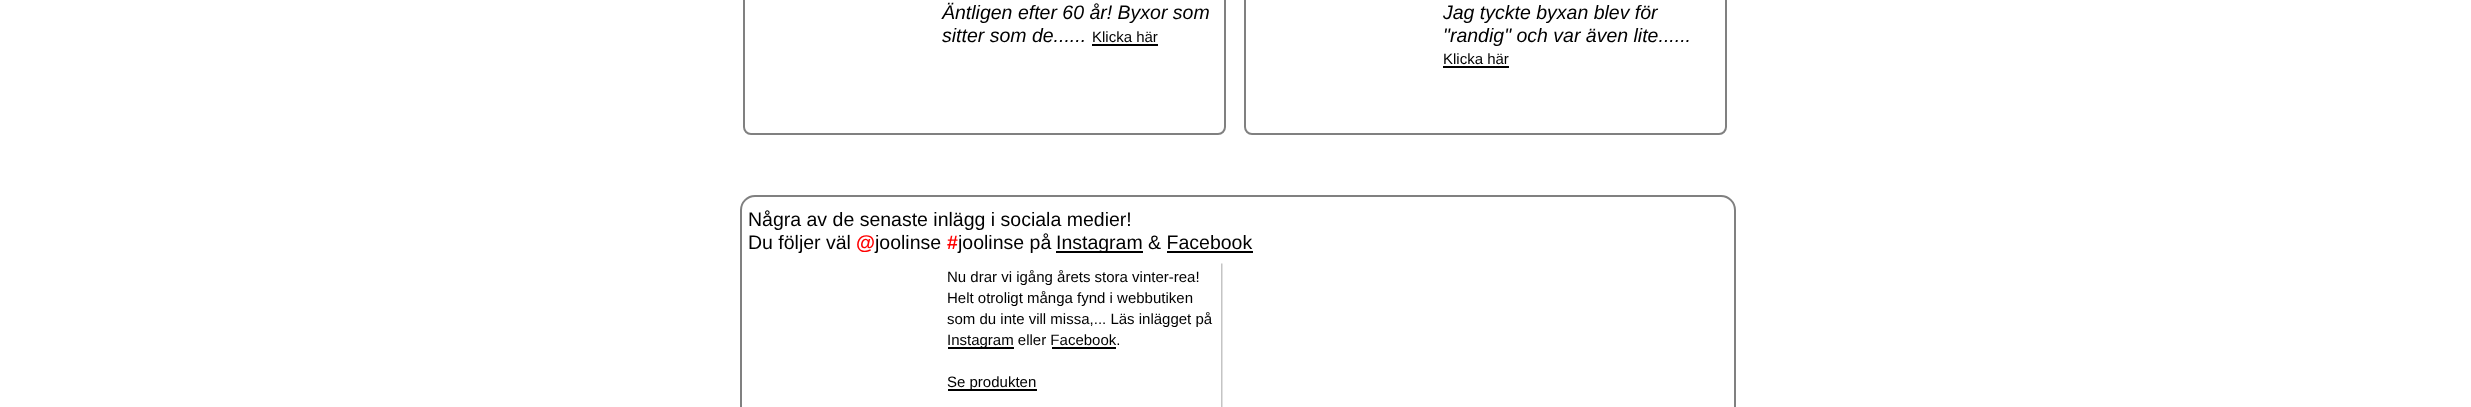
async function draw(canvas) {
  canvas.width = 2471
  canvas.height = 407
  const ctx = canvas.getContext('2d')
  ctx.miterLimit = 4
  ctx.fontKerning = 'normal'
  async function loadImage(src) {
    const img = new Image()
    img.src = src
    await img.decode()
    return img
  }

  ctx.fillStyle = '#fff'
  ctx.fillRect(0, 0, 2471, 407)
  ctx.beginPath()
  ctx.roundRect(744, -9, 481, 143, 7)
  ctx.strokeStyle = '#808080'
  ctx.lineWidth = 2
  ctx.stroke()
  ctx.font = 'italic 19.5px Liberation Sans'
  ctx.fillStyle = '#000'
  ctx.fillText('Äntligen efter 60 år! Byxor som', 942, 19)
  ctx.fillText('sitter som de......', 942, 42)
  ctx.font = '15px Liberation Sans'
  ctx.fillText('Klicka här', 1092, 42)
  ctx.fillRect(1092, 44, 66, 2)
  ctx.beginPath()
  ctx.roundRect(1245, -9, 481, 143, 7)
  ctx.stroke()
  ctx.font = 'italic 19.5px Liberation Sans'
  ctx.fillText('Jag tyckte byxan blev för', 1443, 19)
  ctx.fillText('"randig" och var även lite......', 1443, 42)
  ctx.font = '15px Liberation Sans'
  ctx.fillText('Klicka här', 1443, 64)
  ctx.fillRect(1443, 66, 66, 2)
  ctx.beginPath()
  ctx.roundRect(741, 196, 994, 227, 14)
  ctx.stroke()
  ctx.font = '19.5px Liberation Sans'
  ctx.fillText('Några av de senaste inlägg i sociala medier!', 748, 226)
  ctx.fillText('Du följer väl', 748, 249)
  ctx.font = 'bold 19.5px Liberation Sans'
  ctx.fillStyle = '#f00'
  ctx.fillText('@', 856, 249)
  ctx.font = '19.5px Liberation Sans'
  ctx.fillStyle = '#000'
  ctx.fillText('joolinse', 875, 249)
  ctx.font = 'bold 19.5px Liberation Sans'
  ctx.fillStyle = '#f00'
  ctx.fillText('#', 947, 249)
  ctx.font = '19.5px Liberation Sans'
  ctx.fillStyle = '#000'
  ctx.fillText('joolinse på', 958, 249)
  ctx.fillRect(1056, 251, 87, 2)
  ctx.fillText('Instagram & Facebook', 1056, 249)
  ctx.fillRect(1167, 251, 86, 2)
  ctx.font = '15px Liberation Sans'
  ctx.fillText('Nu drar vi igång årets stora vinter-rea!', 947, 282)
  ctx.fillText('Helt otroligt många fynd i webbutiken', 947, 303)
  ctx.fillText('som du inte vill missa,... Läs inlägget på', 947, 324)
  ctx.fillRect(948, 347, 66, 2)
  ctx.fillText('Instagram eller Facebook.', 947, 345)
  ctx.fillRect(1052, 347, 64, 2)
  ctx.fillRect(948, 389, 89, 2)
  ctx.fillText('Se produkten', 947, 387)
  ctx.drawImage(await loadImage('image0.png'), 1221, 263, 2, 144)
}

draw(document.querySelector('canvas'))
